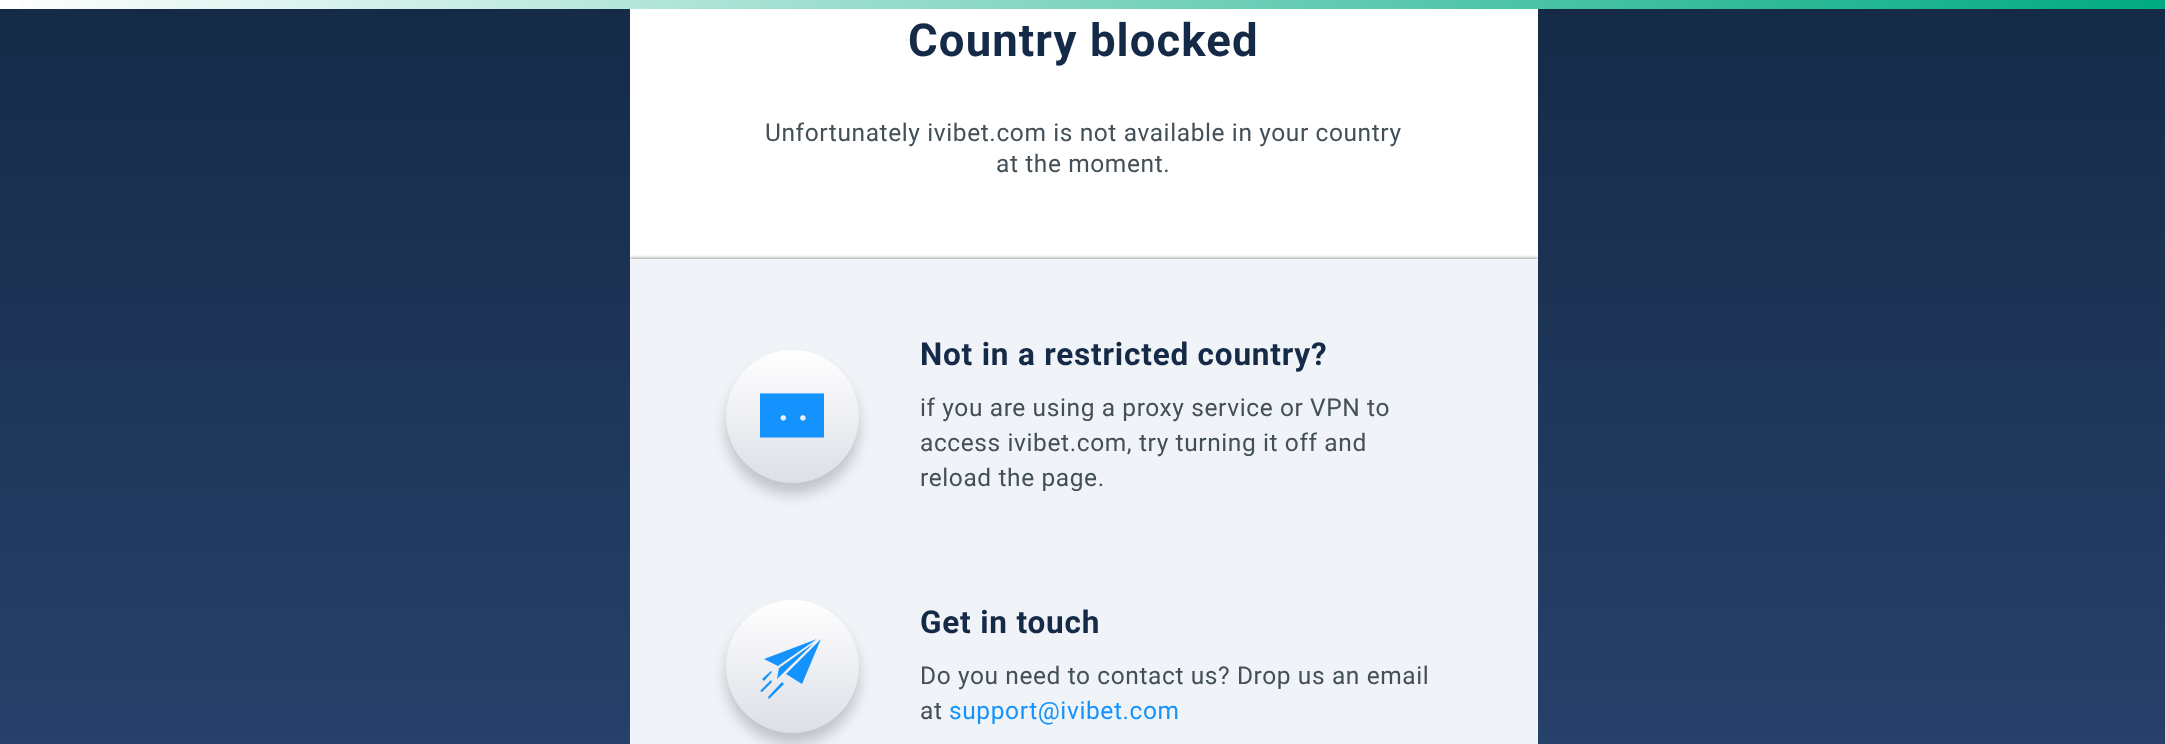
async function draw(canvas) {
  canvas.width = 2165
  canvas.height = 744
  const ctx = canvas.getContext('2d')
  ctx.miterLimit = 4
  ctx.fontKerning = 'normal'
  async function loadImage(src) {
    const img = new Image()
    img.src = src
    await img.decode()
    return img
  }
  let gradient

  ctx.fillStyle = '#fff'
  ctx.fillRect(0, 0, 2165, 744)
  gradient = ctx.createLinearGradient(1083, 0, 1083, 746)
  gradient.addColorStop(0, '#152a47')
  gradient.addColorStop(1, '#26416a')
  ctx.fillStyle = gradient
  ctx.fillRect(0, 9, 2165, 735)
  gradient = ctx.createLinearGradient(0, 0, 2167, 0)
  gradient.addColorStop(0, '#fff')
  gradient.addColorStop(1, '#00aa81')
  ctx.fillStyle = gradient
  ctx.fillRect(21, 0, 2144, 9)
  ctx.fillStyle = '#fff'
  ctx.fillRect(630, 9, 908, 250)
  ctx.letterSpacing = '1.1px'
  ctx.font = 'bold 45.5px Roboto'
  ctx.fillStyle = '#152a47'
  ctx.fillText('Country blocked', 908, 56)
  ctx.letterSpacing = '0.6px'
  ctx.font = '24.5px Roboto'
  ctx.fillStyle = '#445058'
  ctx.fillText('Unfortunately ivibet.com is not available in your country', 765, 141)
  ctx.fillText('at the moment.', 996, 172)
  ctx.save()
  ctx.beginPath()
  ctx.roundRect(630, -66, 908, 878, 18)
  ctx.clip()
  ctx.fillStyle = '#00000091'
  ctx.filter = 'blur(2px)'
  ctx.beginPath()
  ctx.rect(630, 259, 908, 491)
  ctx.fill()
  ctx.filter = 'none'
  ctx.restore()
  ctx.fillStyle = '#f0f3f8'
  ctx.fillRect(630, 259, 908, 485)
  ctx.fillStyle = '#00000033'
  ctx.filter = 'blur(7px)'
  ctx.beginPath()
  ctx.roundRect(726, 361, 133, 133, 66.5)
  ctx.fill()
  ctx.filter = 'none'
  gradient = ctx.createLinearGradient(792, 350, 792, 483)
  gradient.addColorStop(0, '#fff')
  gradient.addColorStop(0.49, '#eeeff3')
  gradient.addColorStop(1, '#dcdfe6')
  ctx.fillStyle = gradient
  ctx.beginPath()
  ctx.arc(792.5, 416.5, 66.5, 0, 2 * Math.PI)
  ctx.fill()
  ctx.drawImage(await loadImage('image0.png'), 760, 393, 64, 45)
  ctx.letterSpacing = '0.8px'
  ctx.font = 'bold 31.5px Roboto'
  ctx.fillStyle = '#152a47'
  ctx.fillText('Not in a restricted country?', 920, 365)
  ctx.letterSpacing = '0.6px'
  ctx.font = '24.5px Roboto'
  ctx.fillStyle = '#445058'
  ctx.fillText('if you are using a proxy service or VPN to', 920, 416)
  ctx.fillText('access ivibet.com, try turning it off and', 920, 451)
  ctx.fillText('reload the page.', 920, 486)
  ctx.fillStyle = '#00000033'
  ctx.filter = 'blur(7px)'
  ctx.beginPath()
  ctx.roundRect(726, 611, 133, 133, 66.5)
  ctx.fill()
  ctx.filter = 'none'
  gradient = ctx.createLinearGradient(792, 601, 792, 734)
  gradient.addColorStop(0, '#fff')
  gradient.addColorStop(0.49, '#eeeff3')
  gradient.addColorStop(1, '#dcdfe6')
  ctx.fillStyle = gradient
  ctx.beginPath()
  ctx.arc(792.5, 666.5, 66.5, 0, 2 * Math.PI)
  ctx.fill()
  ctx.fillStyle = '#1493ff'
  ctx.beginPath()
  ctx.moveTo(764, 659)
  ctx.lineTo(817, 639)
  ctx.lineTo(778, 666)
  ctx.closePath()
  ctx.moveTo(779, 668)
  ctx.lineTo(814, 643)
  ctx.lineTo(777, 679)
  ctx.closePath()
  ctx.moveTo(802, 684)
  ctx.lineTo(786, 674)
  ctx.lineTo(821, 639)
  ctx.closePath()
  ctx.moveTo(760, 691)
  ctx.lineTo(771, 680)
  ctx.lineTo(772, 682)
  ctx.lineTo(762, 692)
  ctx.closePath()
  ctx.moveTo(762, 679)
  ctx.lineTo(771, 671)
  ctx.lineTo(772, 672)
  ctx.lineTo(764, 681)
  ctx.closePath()
  ctx.moveTo(768, 697)
  ctx.lineTo(782, 682)
  ctx.lineTo(784, 684)
  ctx.lineTo(769, 699)
  ctx.closePath()
  ctx.fill()
  ctx.letterSpacing = '0.8px'
  ctx.font = 'bold 31.5px Roboto'
  ctx.fillStyle = '#152a47'
  ctx.fillText('Get in touch', 920, 633)
  ctx.letterSpacing = '0.6px'
  ctx.font = '24.5px Roboto'
  ctx.fillStyle = '#445058'
  ctx.fillText('Do you need to contact us? Drop us an email', 920, 684)
  ctx.fillText('at', 920, 719)
  ctx.fillStyle = '#1493ff'
  ctx.fillText('support@ivibet.com', 949, 719)
}

draw(document.querySelector('canvas'))
